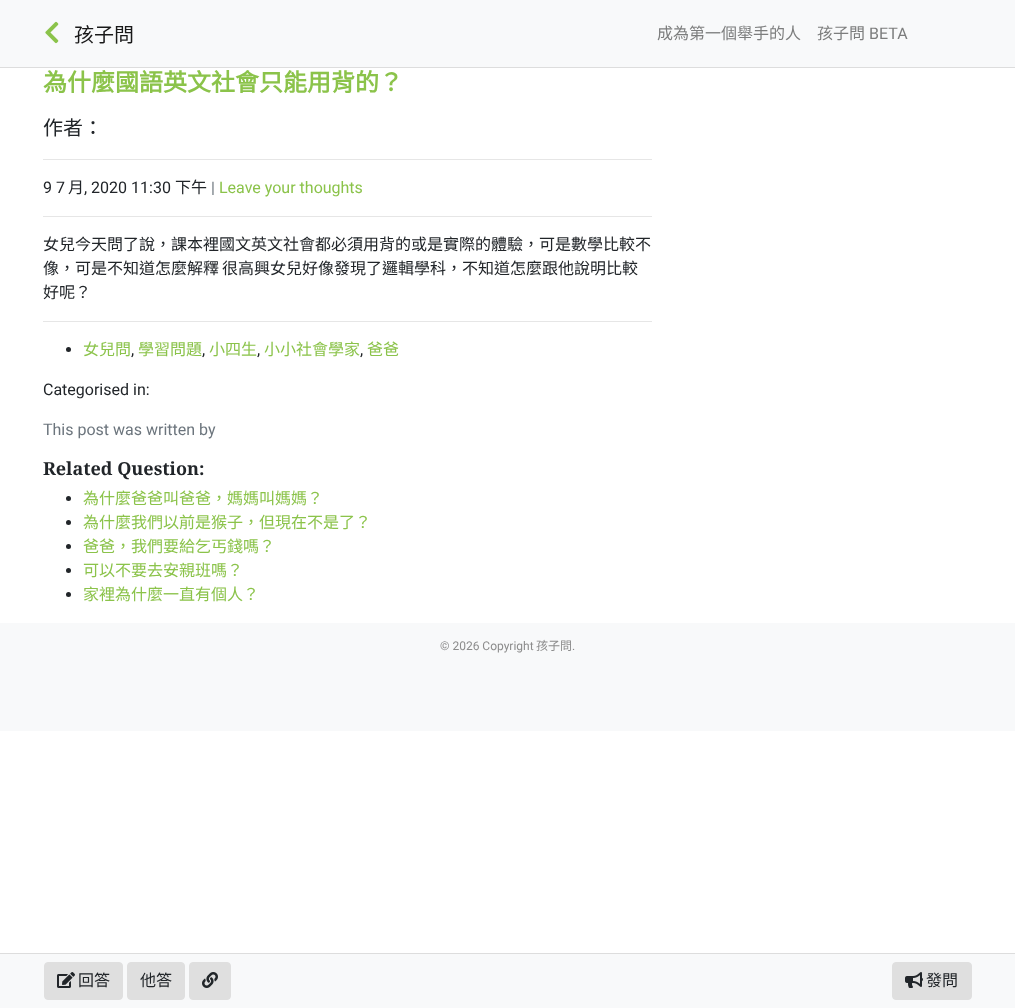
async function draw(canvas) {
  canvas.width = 1015
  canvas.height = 1008
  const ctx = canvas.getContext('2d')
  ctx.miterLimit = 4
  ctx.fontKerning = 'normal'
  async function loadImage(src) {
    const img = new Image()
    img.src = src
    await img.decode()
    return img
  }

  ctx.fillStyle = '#fff'
  ctx.fillRect(0, 0, 1015, 1008)
  ctx.fillStyle = '#f8f9fa'
  ctx.fillRect(0, 0, 1015, 67)
  ctx.fillStyle = '#ddd'
  ctx.fillRect(0, 67, 1015, 1)
  ctx.drawImage(await loadImage('image0.png'), 45, 21, 14, 23)
  ctx.font = '20px Noto Sans CJK TC'
  ctx.fillStyle = '#191919'
  ctx.fillText('孩子問', 74, 42)
  ctx.font = '16px Noto Sans CJK TC'
  ctx.fillStyle = '#7c7d7d'
  ctx.fillText('成為第一個舉手的人', 657, 39)
  ctx.fillText('孩子問', 817, 39)
  ctx.font = '16px Roboto'
  ctx.fillText('BETA', 869, 39)
  ctx.font = 'bold 24px Noto Sans CJK TC'
  ctx.fillStyle = '#8bc34a'
  ctx.fillText('為什麼國語英文社會只能用背的？', 43, 91)
  ctx.font = '20px Noto Sans CJK TC'
  ctx.fillStyle = '#212529'
  ctx.fillText('作者：', 43, 135)
  ctx.fillStyle = '#e6e6e6'
  ctx.fillRect(43, 159, 609, 1)
  ctx.font = '16px Roboto'
  ctx.fillStyle = '#212529'
  ctx.fillText('9 7', 43, 193)
  ctx.font = '16px Noto Sans CJK TC'
  ctx.fillText('月', 68, 193)
  ctx.font = '16px Roboto'
  ctx.fillText(', 2020 11:30', 84, 193)
  ctx.font = '16px Noto Sans CJK TC'
  ctx.fillText('下午', 175, 193)
  ctx.font = '16px Roboto'
  ctx.fillStyle = '#6c757d'
  ctx.fillText('|', 211, 193)
  ctx.fillStyle = '#8bc34a'
  ctx.fillText('Leave your thoughts', 219, 193)
  ctx.fillStyle = '#e6e6e6'
  ctx.fillRect(43, 216, 609, 1)
  ctx.font = '16px Noto Sans CJK TC'
  ctx.fillStyle = '#212529'
  ctx.fillText('女兒今天問了說，課本裡國文英文社會都必須用背的或是實際的體驗，可是數學比較不', 43, 250)
  ctx.fillText('像，可是不知道怎麼解釋', 43, 274)
  ctx.fillText('很高興女兒好像發現了邏輯學科，不知道怎麼跟他說明比較', 222, 274)
  ctx.fillText('好呢？', 43, 298)
  ctx.fillStyle = '#e6e6e6'
  ctx.fillRect(43, 321, 609, 1)
  ctx.fillStyle = '#212529'
  ctx.beginPath()
  ctx.arc(68.5, 349.5, 2.5, 0, 2 * Math.PI)
  ctx.fill()
  ctx.fillStyle = '#8bc34a'
  ctx.fillText('女兒問', 83, 355)
  ctx.fillText('學習問題', 138, 355)
  ctx.fillText('小四生', 209, 355)
  ctx.fillText('小小社會學家', 264, 355)
  ctx.fillText('爸爸', 367, 355)
  ctx.font = '16px Roboto'
  ctx.fillStyle = '#212529'
  ctx.fillText(',', 131, 355)
  ctx.fillText(',', 202, 355)
  ctx.fillText(',', 257, 355)
  ctx.fillText(',', 360, 355)
  ctx.fillText('Categorised in:', 43, 395)
  ctx.fillStyle = '#6c757d'
  ctx.fillText('This post was written by', 43, 435)
  ctx.font = 'bold 18px Noto Serif'
  ctx.fillStyle = '#212529'
  ctx.fillText('Related Question:', 43, 475)
  ctx.beginPath()
  ctx.arc(68.5, 498.5, 2.5, 0, 2 * Math.PI)
  ctx.fill()
  ctx.font = '16px Noto Sans CJK TC'
  ctx.fillStyle = '#8bc34a'
  ctx.fillText('為什麼爸爸叫爸爸，媽媽叫媽媽？', 83, 504)
  ctx.fillStyle = '#212529'
  ctx.beginPath()
  ctx.arc(68.5, 522.5, 2.5, 0, 2 * Math.PI)
  ctx.fill()
  ctx.fillStyle = '#8bc34a'
  ctx.fillText('為什麼我們以前是猴子，但現在不是了？', 83, 528)
  ctx.fillStyle = '#212529'
  ctx.beginPath()
  ctx.arc(68.5, 546.5, 2.5, 0, 2 * Math.PI)
  ctx.fill()
  ctx.fillStyle = '#8bc34a'
  ctx.fillText('爸爸，我們要給乞丐錢嗎？', 83, 552)
  ctx.fillStyle = '#212529'
  ctx.beginPath()
  ctx.arc(68.5, 570.5, 2.5, 0, 2 * Math.PI)
  ctx.fill()
  ctx.fillStyle = '#8bc34a'
  ctx.fillText('可以不要去安親班嗎？', 83, 576)
  ctx.fillStyle = '#212529'
  ctx.beginPath()
  ctx.arc(68.5, 594.5, 2.5, 0, 2 * Math.PI)
  ctx.fill()
  ctx.fillStyle = '#8bc34a'
  ctx.fillText('家裡為什麼一直有個人？', 83, 600)
  ctx.fillStyle = '#f8f9fa'
  ctx.fillRect(0, 623, 1015, 108)
  ctx.font = '12px Roboto'
  ctx.fillStyle = '#8c8c8c'
  ctx.fillText('© 2026 Copyright', 440, 650)
  ctx.font = '12px Noto Sans CJK TC'
  ctx.fillText('孩子問', 536, 650)
  ctx.font = '12px Roboto'
  ctx.fillText('.', 572, 650)
  ctx.fillStyle = '#f8f9fa'
  ctx.fillRect(0, 954, 1015, 54)
  ctx.fillStyle = '#ddd'
  ctx.fillRect(0, 953, 1015, 1)
  ctx.fillStyle = '#dfdfdf'
  ctx.beginPath()
  ctx.roundRect(44.5, 962.5, 78, 37, 3.5)
  ctx.fill()
  ctx.strokeStyle = '#dfdfdf'
  ctx.stroke()
  ctx.drawImage(await loadImage('image1.png'), 57, 972, 18, 16)
  ctx.font = '16px Noto Sans CJK TC'
  ctx.fillStyle = '#212529'
  ctx.fillText('回答', 78, 986)
  ctx.fillStyle = '#dfdfdf'
  ctx.beginPath()
  ctx.roundRect(127.5, 962.5, 57, 37, 3.5)
  ctx.fill()
  ctx.stroke()
  ctx.fillStyle = '#212529'
  ctx.fillText('他答', 140, 986)
  ctx.fillStyle = '#dfdfdf'
  ctx.beginPath()
  ctx.roundRect(189.5, 962.5, 41, 37, 3.5)
  ctx.fill()
  ctx.stroke()
  ctx.drawImage(await loadImage('image2.png'), 202, 972, 16, 16)
  ctx.beginPath()
  ctx.roundRect(892.5, 962.5, 79, 37, 3.5)
  ctx.fill()
  ctx.stroke()
  ctx.drawImage(await loadImage('image3.png'), 905, 972, 18, 16)
  ctx.fillStyle = '#212529'
  ctx.fillText('發問', 926, 986)
}

draw(document.querySelector('canvas'))
